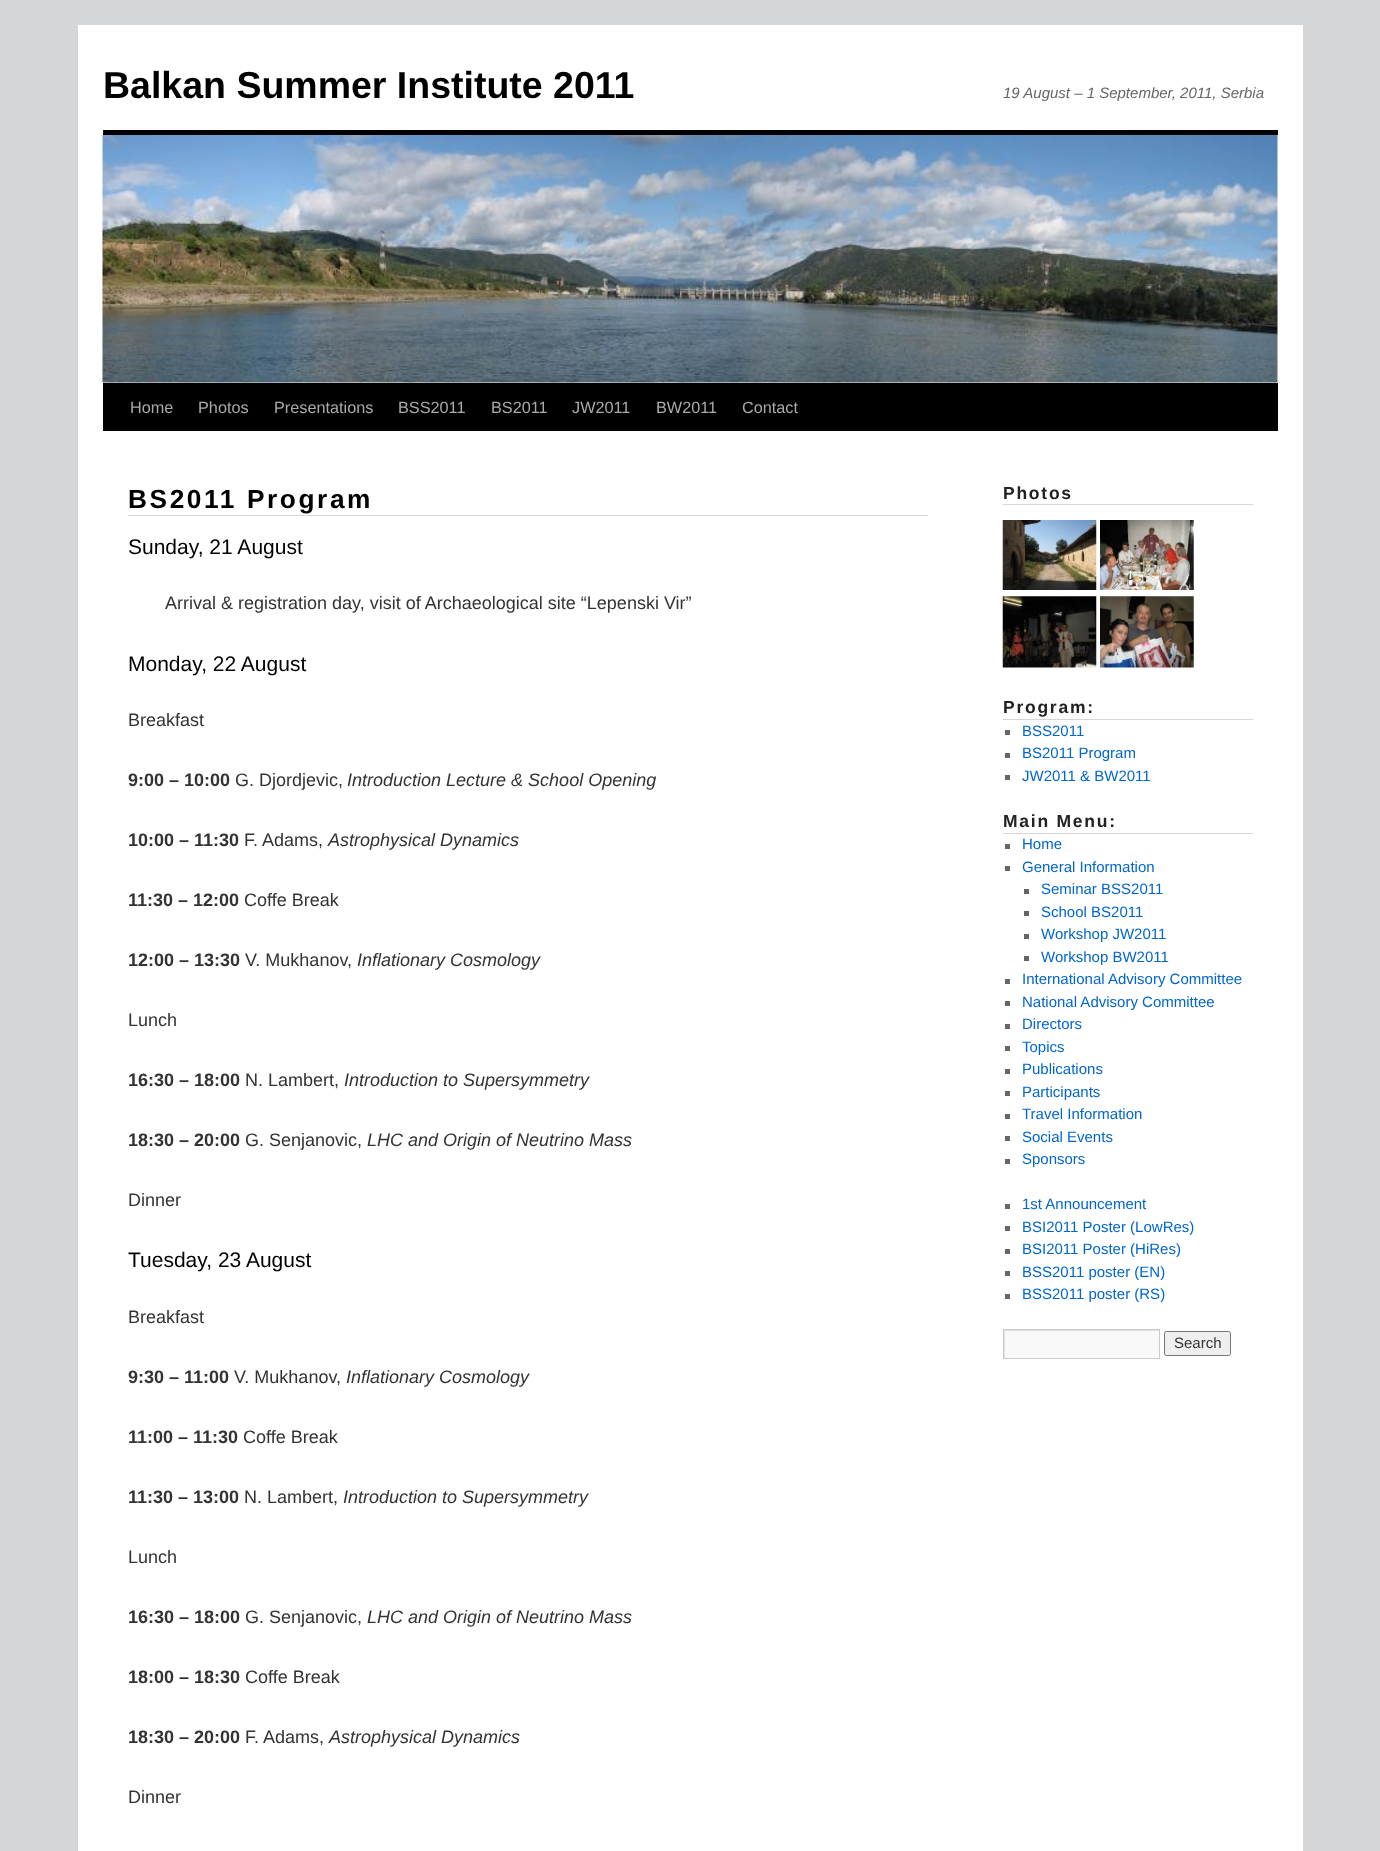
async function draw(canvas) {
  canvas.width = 1380
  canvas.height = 1851
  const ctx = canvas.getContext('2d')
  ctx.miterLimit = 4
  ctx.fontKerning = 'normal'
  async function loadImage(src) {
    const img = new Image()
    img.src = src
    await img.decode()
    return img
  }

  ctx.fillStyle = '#d5d6d7'
  ctx.fillRect(0, 0, 1380, 1851)
  ctx.fillStyle = '#fff'
  ctx.fillRect(78, 25, 1225, 1826)
  ctx.font = 'bold 37.5px Liberation Sans'
  ctx.fillStyle = '#000'
  ctx.fillText('Balkan Summer Institute 2011', 103, 98)
  ctx.font = 'italic 15px Liberation Sans'
  ctx.fillStyle = '#666'
  ctx.fillText('19 August – 1 September, 2011, Serbia', 1003, 98)
  ctx.fillStyle = '#000'
  ctx.fillRect(103, 130, 1175, 5)
  ctx.fillRect(103, 383, 1175, 48)
  ctx.drawImage(await loadImage('image0.png'), 102, 135, 1176, 248)
  ctx.font = '16.25px Liberation Sans'
  ctx.fillStyle = '#aaa'
  ctx.fillText('Home', 130, 413)
  ctx.fillText('Photos', 198, 413)
  ctx.fillText('Presentations', 274, 413)
  ctx.fillText('BSS2011', 398, 413)
  ctx.fillText('BS2011', 491, 413)
  ctx.fillText('JW2011', 572, 413)
  ctx.fillText('BW2011', 656, 413)
  ctx.fillText('Contact', 742, 413)
  ctx.fillStyle = '#d5d6d7'
  ctx.fillRect(128, 515, 800, 1)
  ctx.letterSpacing = '2.6px'
  ctx.font = 'bold 26.25px Liberation Sans'
  ctx.fillStyle = '#000'
  ctx.fillText('BS2011 Program', 128, 508)
  ctx.letterSpacing = '0px'
  ctx.font = '21px Liberation Sans'
  ctx.fillText('Sunday, 21 August', 128, 554)
  ctx.font = '18px Liberation Sans'
  ctx.fillStyle = '#333'
  ctx.fillText('Arrival & registration day, visit of Archaeological site “Lepenski Vir”', 165, 609)
  ctx.font = '21px Liberation Sans'
  ctx.fillStyle = '#000'
  ctx.fillText('Monday, 22 August', 128, 671)
  ctx.font = '18px Liberation Sans'
  ctx.fillStyle = '#333'
  ctx.fillText('Breakfast', 128, 726)
  ctx.font = 'bold 18px Liberation Sans'
  ctx.fillText('9:00 – 10:00', 128, 786)
  ctx.font = '18px Liberation Sans'
  ctx.fillText('G. Djordjevic,', 235, 786)
  ctx.font = 'italic 18px Liberation Sans'
  ctx.fillText('Introduction Lecture & School Opening', 347, 786)
  ctx.font = 'bold 18px Liberation Sans'
  ctx.fillText('10:00 – 11:30', 128, 846)
  ctx.font = '18px Liberation Sans'
  ctx.fillText('F. Adams,', 244, 846)
  ctx.font = 'italic 18px Liberation Sans'
  ctx.fillText('Astrophysical Dynamics', 328, 846)
  ctx.font = 'bold 18px Liberation Sans'
  ctx.fillText('11:30 – 12:00', 128, 906)
  ctx.font = '18px Liberation Sans'
  ctx.fillText('Coffe Break', 244, 906)
  ctx.font = 'bold 18px Liberation Sans'
  ctx.fillText('12:00 – 13:30', 128, 966)
  ctx.font = '18px Liberation Sans'
  ctx.fillText('V. Mukhanov,', 245, 966)
  ctx.font = 'italic 18px Liberation Sans'
  ctx.fillText('Inflationary Cosmology', 357, 966)
  ctx.font = '18px Liberation Sans'
  ctx.fillText('Lunch', 128, 1026)
  ctx.font = 'bold 18px Liberation Sans'
  ctx.fillText('16:30 – 18:00', 128, 1086)
  ctx.font = '18px Liberation Sans'
  ctx.fillText('N. Lambert,', 245, 1086)
  ctx.font = 'italic 18px Liberation Sans'
  ctx.fillText('Introduction to Supersymmetry', 344, 1086)
  ctx.font = 'bold 18px Liberation Sans'
  ctx.fillText('18:30 – 20:00', 128, 1146)
  ctx.font = '18px Liberation Sans'
  ctx.fillText('G. Senjanovic,', 245, 1146)
  ctx.font = 'italic 18px Liberation Sans'
  ctx.fillText('LHC and Origin of Neutrino Mass', 367, 1146)
  ctx.font = '18px Liberation Sans'
  ctx.fillText('Dinner', 128, 1206)
  ctx.font = '21px Liberation Sans'
  ctx.fillStyle = '#000'
  ctx.fillText('Tuesday, 23 August', 128, 1267)
  ctx.font = '18px Liberation Sans'
  ctx.fillStyle = '#333'
  ctx.fillText('Breakfast', 128, 1323)
  ctx.font = 'bold 18px Liberation Sans'
  ctx.fillText('9:30 – 11:00', 128, 1383)
  ctx.font = '18px Liberation Sans'
  ctx.fillText('V. Mukhanov,', 234, 1383)
  ctx.font = 'italic 18px Liberation Sans'
  ctx.fillText('Inflationary Cosmology', 346, 1383)
  ctx.font = 'bold 18px Liberation Sans'
  ctx.fillText('11:00 – 11:30', 128, 1443)
  ctx.font = '18px Liberation Sans'
  ctx.fillText('Coffe Break', 243, 1443)
  ctx.font = 'bold 18px Liberation Sans'
  ctx.fillText('11:30 – 13:00', 128, 1503)
  ctx.font = '18px Liberation Sans'
  ctx.fillText('N. Lambert,', 244, 1503)
  ctx.font = 'italic 18px Liberation Sans'
  ctx.fillText('Introduction to Supersymmetry', 343, 1503)
  ctx.font = '18px Liberation Sans'
  ctx.fillText('Lunch', 128, 1563)
  ctx.font = 'bold 18px Liberation Sans'
  ctx.fillText('16:30 – 18:00', 128, 1623)
  ctx.font = '18px Liberation Sans'
  ctx.fillText('G. Senjanovic,', 245, 1623)
  ctx.font = 'italic 18px Liberation Sans'
  ctx.fillText('LHC and Origin of Neutrino Mass', 367, 1623)
  ctx.font = 'bold 18px Liberation Sans'
  ctx.fillText('18:00 – 18:30', 128, 1683)
  ctx.font = '18px Liberation Sans'
  ctx.fillText('Coffe Break', 245, 1683)
  ctx.font = 'bold 18px Liberation Sans'
  ctx.fillText('18:30 – 20:00', 128, 1743)
  ctx.font = '18px Liberation Sans'
  ctx.fillText('F. Adams,', 245, 1743)
  ctx.font = 'italic 18px Liberation Sans'
  ctx.fillText('Astrophysical Dynamics', 329, 1743)
  ctx.font = '18px Liberation Sans'
  ctx.fillText('Dinner', 128, 1803)
  ctx.fillStyle = '#d5d6d7'
  ctx.fillRect(1003, 504, 250, 1)
  ctx.letterSpacing = '1.75px'
  ctx.font = 'bold 17.5px Liberation Sans'
  ctx.fillStyle = '#222'
  ctx.fillText('Photos', 1003, 499)
  ctx.drawImage(await loadImage('image1.png'), 1002, 520, 95, 70)
  ctx.drawImage(await loadImage('image2.png'), 1100, 520, 94, 70)
  ctx.drawImage(await loadImage('image3.png'), 1002, 596, 95, 72)
  ctx.drawImage(await loadImage('image4.png'), 1100, 596, 94, 72)
  ctx.fillStyle = '#d5d6d7'
  ctx.fillRect(1003, 719, 250, 1)
  ctx.fillStyle = '#222'
  ctx.fillText('Program:', 1003, 713)
  ctx.fillStyle = '#666'
  ctx.fillRect(1005, 730, 5, 5)
  ctx.letterSpacing = '0px'
  ctx.font = '15px Liberation Sans'
  ctx.fillStyle = '#06c'
  ctx.fillText('BSS2011', 1022, 736)
  ctx.fillStyle = '#666'
  ctx.fillRect(1005, 753, 5, 5)
  ctx.fillStyle = '#06c'
  ctx.fillText('BS2011 Program', 1022, 758)
  ctx.fillStyle = '#666'
  ctx.fillRect(1005, 775, 5, 5)
  ctx.fillStyle = '#06c'
  ctx.fillText('JW2011 & BW2011', 1022, 781)
  ctx.fillStyle = '#d5d6d7'
  ctx.fillRect(1003, 833, 250, 1)
  ctx.letterSpacing = '1.75px'
  ctx.font = 'bold 17.5px Liberation Sans'
  ctx.fillStyle = '#222'
  ctx.fillText('Main Menu:', 1003, 827)
  ctx.fillStyle = '#666'
  ctx.fillRect(1005, 844, 5, 5)
  ctx.letterSpacing = '0px'
  ctx.font = '15px Liberation Sans'
  ctx.fillStyle = '#06c'
  ctx.fillText('Home', 1022, 849)
  ctx.fillStyle = '#666'
  ctx.fillRect(1005, 866, 5, 5)
  ctx.fillStyle = '#06c'
  ctx.fillText('General Information', 1022, 872)
  ctx.fillStyle = '#666'
  ctx.fillRect(1024, 889, 5, 5)
  ctx.fillStyle = '#06c'
  ctx.fillText('Seminar BSS2011', 1041, 894)
  ctx.fillStyle = '#666'
  ctx.fillRect(1024, 911, 5, 5)
  ctx.fillStyle = '#06c'
  ctx.fillText('School BS2011', 1041, 917)
  ctx.fillStyle = '#666'
  ctx.fillRect(1024, 934, 5, 5)
  ctx.fillStyle = '#06c'
  ctx.fillText('Workshop JW2011', 1041, 939)
  ctx.fillStyle = '#666'
  ctx.fillRect(1024, 956, 5, 5)
  ctx.fillStyle = '#06c'
  ctx.fillText('Workshop BW2011', 1041, 962)
  ctx.fillStyle = '#666'
  ctx.fillRect(1005, 979, 5, 5)
  ctx.fillStyle = '#06c'
  ctx.fillText('International Advisory Committee', 1022, 984)
  ctx.fillStyle = '#666'
  ctx.fillRect(1005, 1001, 5, 5)
  ctx.fillStyle = '#06c'
  ctx.fillText('National Advisory Committee', 1022, 1007)
  ctx.fillStyle = '#666'
  ctx.fillRect(1005, 1024, 5, 5)
  ctx.fillStyle = '#06c'
  ctx.fillText('Directors', 1022, 1029)
  ctx.fillStyle = '#666'
  ctx.fillRect(1005, 1046, 5, 5)
  ctx.fillStyle = '#06c'
  ctx.fillText('Topics', 1022, 1052)
  ctx.fillStyle = '#666'
  ctx.fillRect(1005, 1069, 5, 5)
  ctx.fillStyle = '#06c'
  ctx.fillText('Publications', 1022, 1074)
  ctx.fillStyle = '#666'
  ctx.fillRect(1005, 1091, 5, 5)
  ctx.fillStyle = '#06c'
  ctx.fillText('Participants', 1022, 1097)
  ctx.fillStyle = '#666'
  ctx.fillRect(1005, 1114, 5, 5)
  ctx.fillStyle = '#06c'
  ctx.fillText('Travel Information', 1022, 1119)
  ctx.fillStyle = '#666'
  ctx.fillRect(1005, 1136, 5, 5)
  ctx.fillStyle = '#06c'
  ctx.fillText('Social Events', 1022, 1142)
  ctx.fillStyle = '#666'
  ctx.fillRect(1005, 1159, 5, 5)
  ctx.fillStyle = '#06c'
  ctx.fillText('Sponsors', 1022, 1164)
  ctx.fillStyle = '#666'
  ctx.fillRect(1005, 1204, 5, 5)
  ctx.fillStyle = '#06c'
  ctx.fillText('1st Announcement', 1022, 1209)
  ctx.fillStyle = '#666'
  ctx.fillRect(1005, 1226, 5, 5)
  ctx.fillStyle = '#06c'
  ctx.fillText('BSI2011 Poster (LowRes)', 1022, 1232)
  ctx.fillStyle = '#666'
  ctx.fillRect(1005, 1249, 5, 5)
  ctx.fillStyle = '#06c'
  ctx.fillText('BSI2011 Poster (HiRes)', 1022, 1254)
  ctx.fillStyle = '#666'
  ctx.fillRect(1005, 1271, 5, 5)
  ctx.fillStyle = '#06c'
  ctx.fillText('BSS2011 poster (EN)', 1022, 1277)
  ctx.fillStyle = '#666'
  ctx.fillRect(1005, 1294, 5, 5)
  ctx.fillStyle = '#06c'
  ctx.fillText('BSS2011 poster (RS)', 1022, 1299)
  ctx.fillStyle = '#f9f9f9'
  ctx.fillRect(1005, 1331, 154, 27)
  ctx.save()
  ctx.beginPath()
  ctx.rect(1004, 1330, 155, 28)
  ctx.clip()
  ctx.fillStyle = '#e0e0e0'
  ctx.beginPath()
  ctx.moveTo(880, 1206)
  ctx.lineTo(1282, 1206)
  ctx.lineTo(1282, 1481)
  ctx.lineTo(880, 1481)
  ctx.closePath()
  ctx.moveTo(1005, 1331)
  ctx.lineTo(1160, 1331)
  ctx.lineTo(1160, 1359)
  ctx.lineTo(1005, 1359)
  ctx.closePath()
  ctx.fill('evenodd')
  ctx.restore()
  ctx.strokeStyle = '#ccc'
  ctx.strokeRect(1003.5, 1329.5, 156, 29)
  ctx.fillStyle = '#efefef'
  ctx.beginPath()
  ctx.roundRect(1164.5, 1331.5, 66, 24, 2)
  ctx.fill()
  ctx.strokeStyle = '#767676'
  ctx.stroke()
  ctx.fillStyle = '#333'
  ctx.fillText('Search', 1174, 1348)
}

draw(document.querySelector('canvas'))
